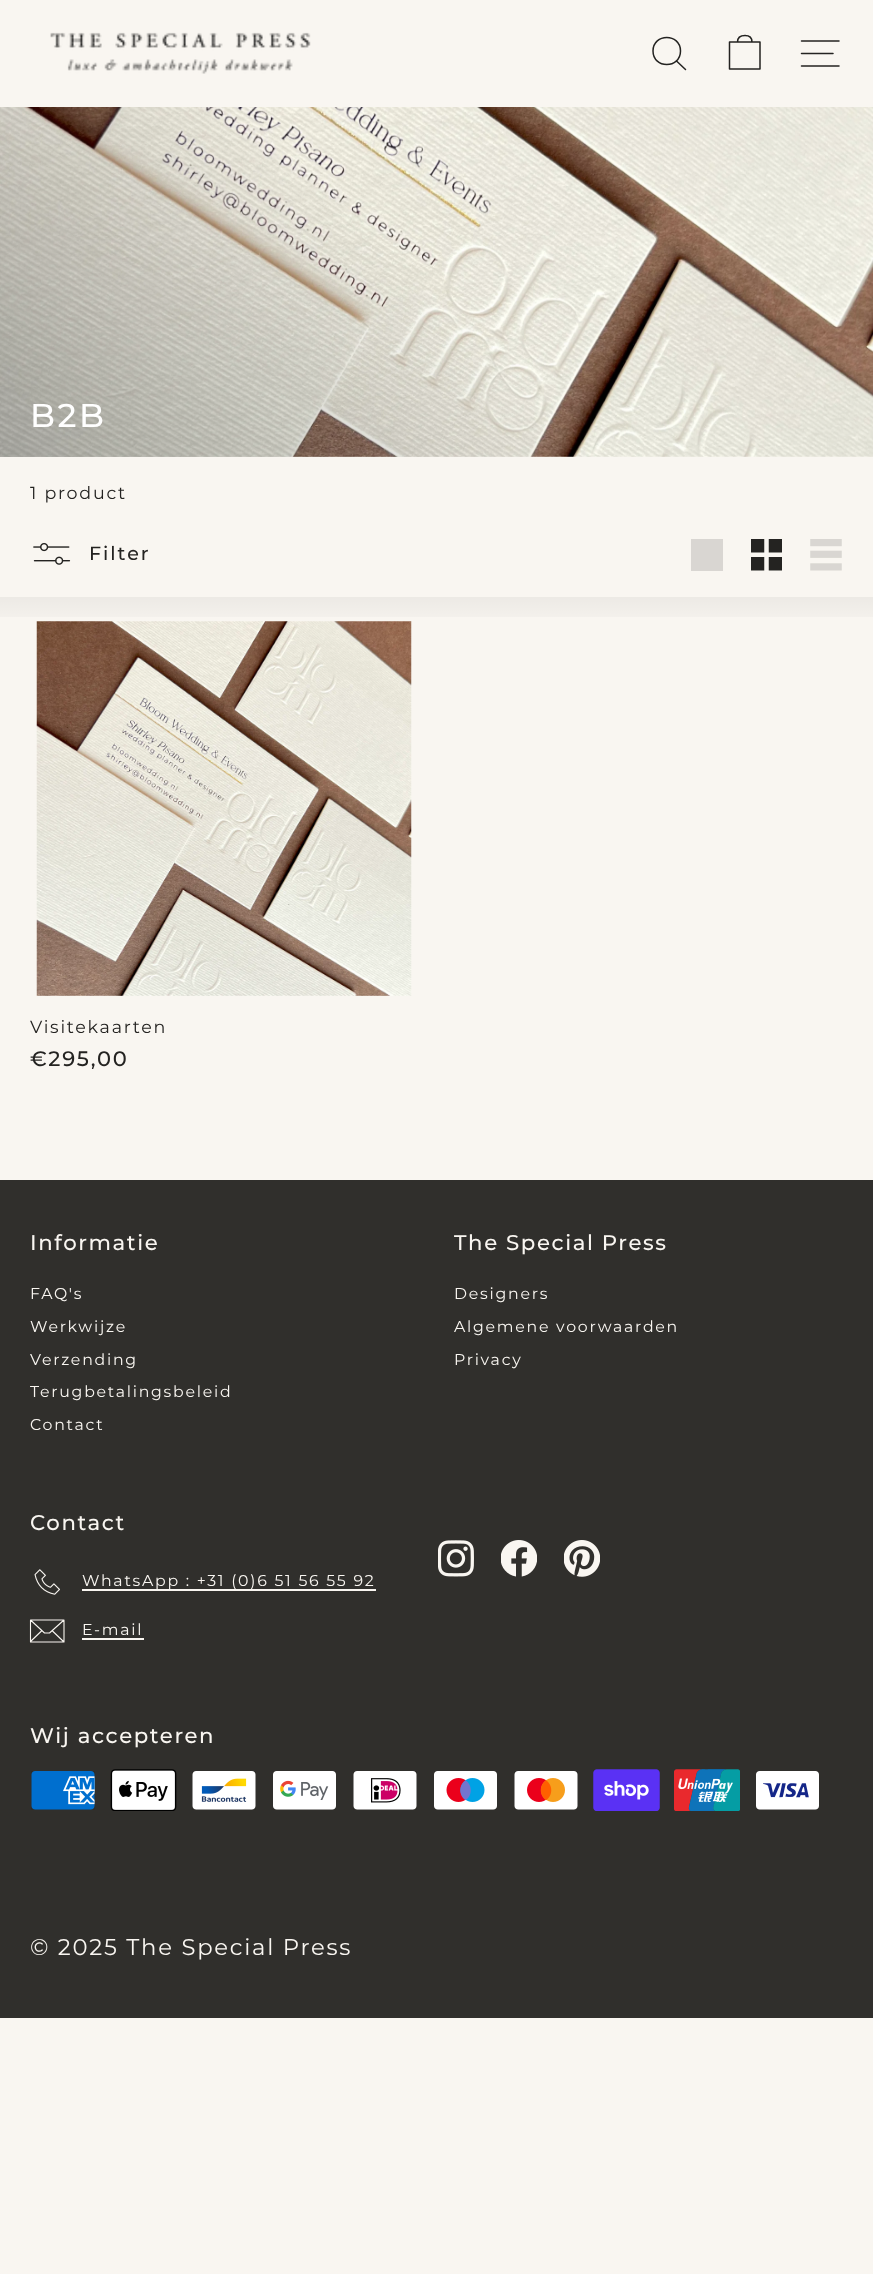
async function draw(canvas) {
  canvas.width = 873
  canvas.height = 2274
  const ctx = canvas.getContext('2d')
  ctx.miterLimit = 4
  ctx.fontKerning = 'normal'
  async function loadImage(src) {
    const img = new Image()
    img.src = src
    await img.decode()
    return img
  }
  let gradient

  ctx.fillStyle = '#f9f6f1'
  ctx.fillRect(0, 0, 873, 2274)
  ctx.drawImage(await loadImage('image0.png'), 50, 32, 261, 42)
  ctx.beginPath()
  ctx.moveTo(680.5, 51)
  ctx.bezierCurveTo(680.5, 69, 653, 69, 653, 51)
  ctx.bezierCurveTo(653, 33, 680.5, 33, 680.5, 51)
  ctx.closePath()
  ctx.moveTo(685.5, 69.5)
  ctx.lineTo(676.5, 61)
  ctx.strokeStyle = '#242321'
  ctx.lineWidth = 1.5
  ctx.lineCap = 'round'
  ctx.lineJoin = 'round'
  ctx.stroke()
  ctx.beginPath()
  ctx.moveTo(737.5, 42)
  ctx.bezierCurveTo(737.5, 37, 741, 35.5, 745, 35.5)
  ctx.bezierCurveTo(749, 35.5, 752, 37, 752, 42)
  ctx.moveTo(729.5, 42)
  ctx.lineTo(760, 42)
  ctx.lineTo(760, 69)
  ctx.lineTo(729.5, 69)
  ctx.closePath()
  ctx.stroke()
  ctx.beginPath()
  ctx.moveTo(801.5, 41)
  ctx.lineTo(839, 41)
  ctx.moveTo(801.5, 53.5)
  ctx.lineTo(833, 53.5)
  ctx.moveTo(801.5, 66)
  ctx.lineTo(839, 66)
  ctx.stroke()
  ctx.drawImage(await loadImage('image1.png'), 0, 107, 873, 350)
  gradient = ctx.createLinearGradient(131, 588, 742, -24)
  gradient.addColorStop(0, '#0000004d')
  gradient.addColorStop(0.5, '#00000000')
  ctx.fillStyle = gradient
  ctx.fillRect(0, 107, 566, 350)
  ctx.letterSpacing = '2.5px'
  ctx.font = '500 33px Montserrat'
  ctx.fillStyle = '#fff'
  ctx.fillText('B2B', 30, 427)
  ctx.letterSpacing = '1.75px'
  ctx.font = '17.5px Montserrat'
  ctx.fillStyle = '#242321'
  ctx.fillText('1 product', 30, 499)
  ctx.drawImage(await loadImage('image2.png'), 33, 542, 38, 23)
  ctx.letterSpacing = '2px'
  ctx.font = '500 19px Montserrat'
  ctx.fillText('Filter', 89, 560)
  ctx.fillStyle = '#d9d6d2'
  ctx.fillRect(691, 539, 32, 32)
  ctx.drawImage(await loadImage('image3.png'), 751, 539, 31, 32)
  ctx.drawImage(await loadImage('image4.png'), 810, 539, 32, 32)
  gradient = ctx.createLinearGradient(437, 597, 437, 632)
  gradient.addColorStop(0, '#0000000d')
  gradient.addColorStop(1, '#00000000')
  ctx.fillStyle = gradient
  ctx.fillRect(0, 597, 873, 20)
  ctx.drawImage(await loadImage('image5.png'), 36, 621, 376, 375)
  ctx.letterSpacing = '1.75px'
  ctx.font = '17.5px Montserrat'
  ctx.fillStyle = '#242321'
  ctx.fillText('Visitekaarten', 30, 1033)
  ctx.font = '500 21px Montserrat'
  ctx.fillText('€295,00', 30, 1066)
  ctx.fillStyle = '#302f2c'
  ctx.fillRect(0, 1180, 873, 838)
  ctx.letterSpacing = '1.6px'
  ctx.font = '500 21.25px Montserrat'
  ctx.fillStyle = '#f9f6f1'
  ctx.fillText('Informatie', 30, 1250)
  ctx.letterSpacing = '1.75px'
  ctx.font = '15.75px Montserrat'
  ctx.fillText('FAQ\'s', 30, 1299)
  ctx.fillText('Werkwijze', 30, 1332)
  ctx.fillText('Verzending', 30, 1365)
  ctx.fillText('Terugbetalingsbeleid', 30, 1397)
  ctx.fillText('Contact', 30, 1430)
  ctx.letterSpacing = '1.6px'
  ctx.font = '500 21.25px Montserrat'
  ctx.fillText('The Special Press', 454, 1250)
  ctx.letterSpacing = '1.75px'
  ctx.font = '15.75px Montserrat'
  ctx.fillText('Designers', 454, 1299)
  ctx.fillText('Algemene voorwaarden', 454, 1332)
  ctx.fillText('Privacy', 454, 1365)
  ctx.letterSpacing = '1.6px'
  ctx.font = '500 21.25px Montserrat'
  ctx.fillText('Contact', 30, 1530)
  ctx.drawImage(await loadImage('image6.png'), 34, 1569, 26, 26)
  ctx.fillRect(82, 1589, 294, 2)
  ctx.letterSpacing = '1.75px'
  ctx.font = '15.75px Montserrat'
  ctx.fillText('WhatsApp : +31 (0)6 51 56 55 92', 82, 1586)
  ctx.beginPath()
  ctx.moveTo(64, 1642)
  ctx.lineTo(30.5, 1642)
  ctx.lineTo(30.5, 1620)
  ctx.lineTo(64, 1620)
  ctx.closePath()
  ctx.moveTo(30.5, 1620)
  ctx.lineTo(44.5, 1633)
  ctx.lineTo(49.5, 1633)
  ctx.lineTo(64, 1620)
  ctx.moveTo(41.5, 1631)
  ctx.lineTo(30.5, 1641.5)
  ctx.moveTo(64, 1642)
  ctx.lineTo(52.5, 1631)
  ctx.strokeStyle = '#f9f6f1'
  ctx.lineWidth = 1.1
  ctx.stroke()
  ctx.fillText('E-mail', 82, 1635)
  ctx.fillRect(82, 1638, 62, 2)
  ctx.drawImage(await loadImage('image7.png'), 438, 1540, 36, 37)
  ctx.drawImage(await loadImage('image8.png'), 501, 1540, 36, 37)
  ctx.drawImage(await loadImage('image9.png'), 564, 1540, 36, 37)
  ctx.letterSpacing = '1.6px'
  ctx.font = '500 21.25px Montserrat'
  ctx.fillText('Wij accepteren', 30, 1743)
  ctx.drawImage(await loadImage('image10.png'), 31, 1771, 64, 39)
  ctx.drawImage(await loadImage('image11.png'), 110, 1769, 67, 42)
  ctx.drawImage(await loadImage('image12.png'), 192, 1771, 64, 39)
  ctx.drawImage(await loadImage('image13.png'), 273, 1771, 63, 39)
  ctx.drawImage(await loadImage('image14.png'), 353, 1771, 64, 39)
  ctx.drawImage(await loadImage('image15.png'), 434, 1771, 63, 39)
  ctx.drawImage(await loadImage('image16.png'), 514, 1771, 64, 39)
  ctx.drawImage(await loadImage('image17.png'), 593, 1769, 67, 42)
  ctx.drawImage(await loadImage('image18.png'), 674, 1769, 66, 42)
  ctx.drawImage(await loadImage('image19.png'), 756, 1771, 63, 39)
  ctx.letterSpacing = '1.75px'
  ctx.font = '22.75px Montserrat'
  ctx.fillText('© 2025 The Special Press', 30, 1955)
}

draw(document.querySelector('canvas'))
